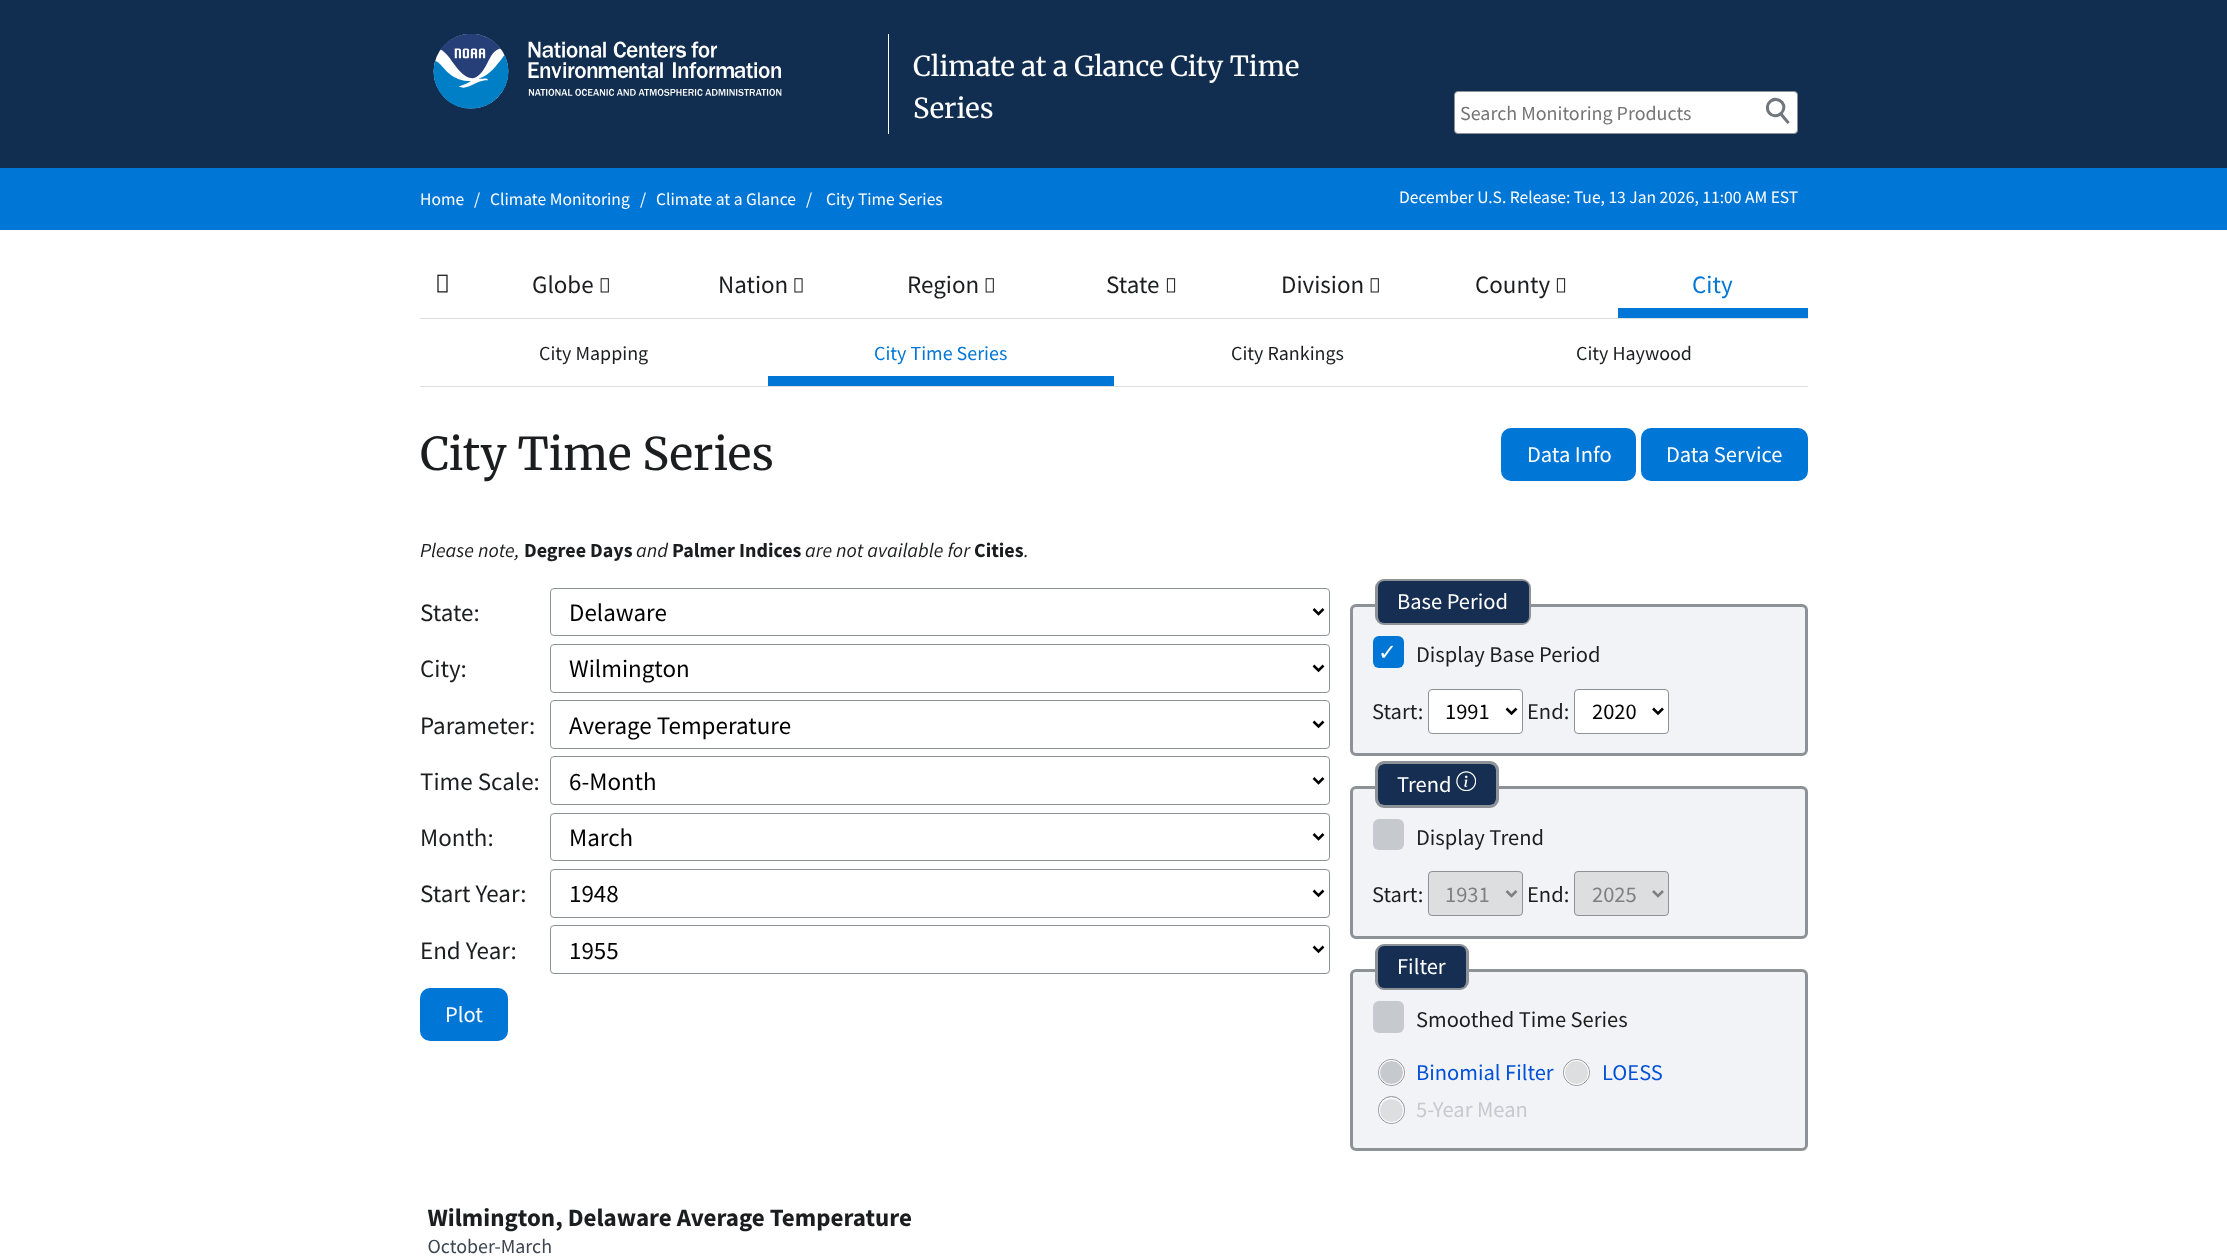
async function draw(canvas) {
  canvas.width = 2227
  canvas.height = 1256
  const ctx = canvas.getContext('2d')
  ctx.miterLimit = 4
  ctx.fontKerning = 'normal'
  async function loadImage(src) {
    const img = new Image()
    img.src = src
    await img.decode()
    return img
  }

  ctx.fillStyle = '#fff'
  ctx.fillRect(0, 0, 2227, 1256)
  ctx.fillStyle = '#112e51'
  ctx.fillRect(0, 0, 2227, 168)
  ctx.drawImage(await loadImage('image0.png'), 433, 34, 349, 75)
  ctx.fillStyle = '#fff'
  ctx.fillRect(888, 34, 1, 100)
  ctx.font = '27.5px Merriweather'
  ctx.fillText('Climate at a Glance City Time', 913, 76)
  ctx.fillText('Series', 913, 118)
  ctx.beginPath()
  ctx.roundRect(1454.5, 91.5, 343, 42, 3.5)
  ctx.fill()
  ctx.strokeStyle = '#8d9297'
  ctx.stroke()
  ctx.font = '20px Source Sans Pro'
  ctx.fillStyle = '#757575'
  ctx.fillText('Search Monitoring Products', 1460, 120)
  ctx.font = '35px DejaVu Sans'
  ctx.fillStyle = '#72777d'
  ctx.save()
  ctx.translate(1776, 128)
  ctx.rotate(-40 * Math.PI / 180)
  ctx.fillText('⚲', 0, 0)
  ctx.restore()
  ctx.fillStyle = '#0076d6'
  ctx.fillRect(0, 168, 2227, 62)
  ctx.font = '17.5px Source Sans Pro'
  ctx.fillStyle = '#fff'
  ctx.fillText('Home', 420, 205)
  ctx.fillText('/', 474, 205)
  ctx.fillText('Climate Monitoring', 490, 205)
  ctx.fillText('/', 640, 205)
  ctx.fillText('Climate at a Glance', 656, 205)
  ctx.fillText('/', 806, 205)
  ctx.fillText('City Time Series', 826, 205)
  ctx.fillText('December U.S. Release: Tue, 13 Jan 2026, 11:00 AM EST', 1399, 203)
  ctx.fillStyle = '#dcdee0'
  ctx.fillRect(420, 318, 1388, 1)
  ctx.drawImage(await loadImage('image1.png'), 437, 274, 11, 19)
  ctx.font = '25px Source Sans Pro'
  ctx.fillStyle = '#1c1d1f'
  ctx.fillText('Globe', 532, 293)
  ctx.drawImage(await loadImage('image2.png'), 600, 278, 9, 15)
  ctx.fillText('Nation', 718, 293)
  ctx.drawImage(await loadImage('image3.png'), 794, 278, 9, 15)
  ctx.fillText('Region', 907, 293)
  ctx.drawImage(await loadImage('image2.png'), 985, 278, 9, 15)
  ctx.fillText('State', 1106, 293)
  ctx.drawImage(await loadImage('image4.png'), 1166, 278, 10, 15)
  ctx.fillText('Division', 1281, 293)
  ctx.drawImage(await loadImage('image2.png'), 1370, 278, 9, 15)
  ctx.fillText('County', 1475, 293)
  ctx.drawImage(await loadImage('image4.png'), 1556, 278, 10, 15)
  ctx.fillStyle = '#0076d6'
  ctx.fillText('City', 1692, 293)
  ctx.fillRect(1618, 308, 190, 10)
  ctx.fillStyle = '#dcdee0'
  ctx.fillRect(420, 386, 1388, 1)
  ctx.font = '20px Source Sans Pro'
  ctx.fillStyle = '#1c1d1f'
  ctx.fillText('City Mapping', 539, 360)
  ctx.fillStyle = '#0076d6'
  ctx.fillText('City Time Series', 874, 360)
  ctx.fillRect(768, 376, 346, 10)
  ctx.fillStyle = '#1c1d1f'
  ctx.fillText('City Rankings', 1231, 360)
  ctx.fillText('City Haywood', 1576, 360)
  ctx.font = '45px Merriweather'
  ctx.fillText('City Time Series', 420, 470)
  ctx.fillStyle = '#0076d6'
  ctx.beginPath()
  ctx.roundRect(1502.5, 429.5, 132, 50, 8.5)
  ctx.fill()
  ctx.strokeStyle = '#0076d6'
  ctx.lineWidth = 3
  ctx.stroke()
  ctx.font = '22.5px Source Sans Pro'
  ctx.fillStyle = '#fff'
  ctx.fillText('Data Info', 1527, 462)
  ctx.fillStyle = '#0076d6'
  ctx.beginPath()
  ctx.roundRect(1642.5, 429.5, 164, 50, 8.5)
  ctx.fill()
  ctx.stroke()
  ctx.fillStyle = '#fff'
  ctx.fillText('Data Service', 1666, 462)
  ctx.font = 'italic 20px Source Sans Pro'
  ctx.fillStyle = '#1c1d1f'
  ctx.fillText('Please note,', 420, 557)
  ctx.font = 'bold 20px Source Sans Pro'
  ctx.fillText('Degree Days', 524, 557)
  ctx.font = 'italic 20px Source Sans Pro'
  ctx.fillText('and', 636, 557)
  ctx.font = 'bold 20px Source Sans Pro'
  ctx.fillText('Palmer Indices', 672, 557)
  ctx.font = 'italic 20px Source Sans Pro'
  ctx.fillText('are not available for', 805, 557)
  ctx.font = 'bold 20px Source Sans Pro'
  ctx.fillText('Cities', 974, 557)
  ctx.font = 'italic 20px Source Sans Pro'
  ctx.fillText('.', 1024, 557)
  ctx.font = '25px Source Sans Pro'
  ctx.fillText('State:', 420, 621)
  ctx.beginPath()
  ctx.roundRect(550.5, 588.5, 779, 47, 3.5)
  ctx.strokeStyle = '#8d9297'
  ctx.lineWidth = 1
  ctx.stroke()
  ctx.beginPath()
  ctx.moveTo(1313.5, 609)
  ctx.lineTo(1318.5, 614)
  ctx.lineTo(1323.5, 609)
  ctx.strokeStyle = '#000'
  ctx.lineWidth = 2.5
  ctx.stroke()
  ctx.fillStyle = '#000'
  ctx.fillText('Delaware', 569, 621)
  ctx.fillStyle = '#1c1d1f'
  ctx.fillText('City:', 420, 677)
  ctx.beginPath()
  ctx.roundRect(550.5, 644.5, 779, 48, 3.5)
  ctx.strokeStyle = '#8d9297'
  ctx.lineWidth = 1
  ctx.stroke()
  ctx.beginPath()
  ctx.moveTo(1313.5, 665.5)
  ctx.lineTo(1318.5, 670.5)
  ctx.lineTo(1323.5, 665.5)
  ctx.strokeStyle = '#000'
  ctx.lineWidth = 2.5
  ctx.stroke()
  ctx.fillStyle = '#000'
  ctx.fillText('Wilmington', 569, 677)
  ctx.fillStyle = '#1c1d1f'
  ctx.fillText('Parameter:', 420, 734)
  ctx.beginPath()
  ctx.roundRect(550.5, 700.5, 779, 48, 3.5)
  ctx.strokeStyle = '#8d9297'
  ctx.lineWidth = 1
  ctx.stroke()
  ctx.beginPath()
  ctx.moveTo(1313.5, 721.5)
  ctx.lineTo(1318.5, 726.5)
  ctx.lineTo(1323.5, 721.5)
  ctx.strokeStyle = '#000'
  ctx.lineWidth = 2.5
  ctx.stroke()
  ctx.fillStyle = '#000'
  ctx.fillText('Average Temperature', 569, 734)
  ctx.fillStyle = '#1c1d1f'
  ctx.fillText('Time Scale:', 420, 790)
  ctx.beginPath()
  ctx.roundRect(550.5, 756.5, 779, 48, 3.5)
  ctx.strokeStyle = '#8d9297'
  ctx.lineWidth = 1
  ctx.stroke()
  ctx.beginPath()
  ctx.moveTo(1313.5, 778)
  ctx.lineTo(1318.5, 783)
  ctx.lineTo(1323.5, 778)
  ctx.strokeStyle = '#000'
  ctx.lineWidth = 2.5
  ctx.stroke()
  ctx.fillStyle = '#000'
  ctx.fillText('6-Month', 569, 790)
  ctx.fillStyle = '#1c1d1f'
  ctx.fillText('Month:', 420, 846)
  ctx.beginPath()
  ctx.roundRect(550.5, 813.5, 779, 47, 3.5)
  ctx.strokeStyle = '#8d9297'
  ctx.lineWidth = 1
  ctx.stroke()
  ctx.beginPath()
  ctx.moveTo(1313.5, 834)
  ctx.lineTo(1318.5, 839)
  ctx.lineTo(1323.5, 834)
  ctx.strokeStyle = '#000'
  ctx.lineWidth = 2.5
  ctx.stroke()
  ctx.fillStyle = '#000'
  ctx.fillText('March', 569, 846)
  ctx.fillStyle = '#1c1d1f'
  ctx.fillText('Start Year:', 420, 902)
  ctx.beginPath()
  ctx.roundRect(550.5, 869.5, 779, 48, 3.5)
  ctx.strokeStyle = '#8d9297'
  ctx.lineWidth = 1
  ctx.stroke()
  ctx.beginPath()
  ctx.moveTo(1313.5, 890.5)
  ctx.lineTo(1318.5, 895.5)
  ctx.lineTo(1323.5, 890.5)
  ctx.strokeStyle = '#000'
  ctx.lineWidth = 2.5
  ctx.stroke()
  ctx.fillStyle = '#000'
  ctx.fillText('1948', 569, 902)
  ctx.fillStyle = '#1c1d1f'
  ctx.fillText('End Year:', 420, 959)
  ctx.beginPath()
  ctx.roundRect(550.5, 925.5, 779, 48, 3.5)
  ctx.strokeStyle = '#8d9297'
  ctx.lineWidth = 1
  ctx.stroke()
  ctx.beginPath()
  ctx.moveTo(1313.5, 946.5)
  ctx.lineTo(1318.5, 951.5)
  ctx.lineTo(1323.5, 946.5)
  ctx.strokeStyle = '#000'
  ctx.lineWidth = 2.5
  ctx.stroke()
  ctx.fillStyle = '#000'
  ctx.fillText('1955', 569, 959)
  ctx.fillStyle = '#f1f3f6'
  ctx.beginPath()
  ctx.roundRect(1351.5, 605.5, 455, 149, 4.5)
  ctx.fill()
  ctx.strokeStyle = '#8d9297'
  ctx.lineWidth = 3
  ctx.stroke()
  ctx.beginPath()
  ctx.roundRect(1376.5, 580.5, 153, 43, 7.5)
  ctx.stroke()
  ctx.fillStyle = '#162e51'
  ctx.beginPath()
  ctx.roundRect(1378, 581, 151, 42, 6)
  ctx.fill()
  ctx.font = '22.5px Source Sans Pro'
  ctx.fillStyle = '#fff'
  ctx.fillText('Base Period', 1397, 609)
  ctx.fillStyle = '#0076d6'
  ctx.beginPath()
  ctx.roundRect(1373, 636, 31, 32, 6)
  ctx.fill()
  ctx.font = '22.5px DejaVu Sans'
  ctx.fillStyle = '#fff'
  ctx.fillText('✓', 1378, 660)
  ctx.font = '22.5px Source Sans Pro'
  ctx.fillStyle = '#1c1d1f'
  ctx.fillText('Display Base Period', 1416, 662)
  ctx.fillText('Start:', 1372, 719)
  ctx.fillStyle = '#fff'
  ctx.beginPath()
  ctx.roundRect(1428.5, 689.5, 94, 44, 3.5)
  ctx.fill()
  ctx.lineWidth = 1
  ctx.stroke()
  ctx.beginPath()
  ctx.moveTo(1506.5, 708.5)
  ctx.lineTo(1511.5, 713.5)
  ctx.lineTo(1516.5, 708.5)
  ctx.strokeStyle = '#000'
  ctx.lineWidth = 2.5
  ctx.stroke()
  ctx.fillStyle = '#000'
  ctx.fillText('1991', 1445, 719)
  ctx.fillStyle = '#1c1d1f'
  ctx.fillText('End:', 1527, 719)
  ctx.fillStyle = '#fff'
  ctx.beginPath()
  ctx.roundRect(1574.5, 689.5, 94, 44, 3.5)
  ctx.fill()
  ctx.strokeStyle = '#8d9297'
  ctx.lineWidth = 1
  ctx.stroke()
  ctx.beginPath()
  ctx.moveTo(1653, 708.5)
  ctx.lineTo(1658, 713.5)
  ctx.lineTo(1663, 708.5)
  ctx.strokeStyle = '#000'
  ctx.lineWidth = 2.5
  ctx.stroke()
  ctx.fillStyle = '#000'
  ctx.fillText('2020', 1592, 719)
  ctx.fillStyle = '#f1f3f6'
  ctx.beginPath()
  ctx.roundRect(1351.5, 787.5, 455, 150, 4.5)
  ctx.fill()
  ctx.strokeStyle = '#8d9297'
  ctx.lineWidth = 3
  ctx.stroke()
  ctx.beginPath()
  ctx.roundRect(1376.5, 762.5, 121, 44, 7.5)
  ctx.stroke()
  ctx.fillStyle = '#162e51'
  ctx.beginPath()
  ctx.roundRect(1378, 764, 118, 41, 6)
  ctx.fill()
  ctx.fillStyle = '#fff'
  ctx.fillText('Trend', 1397, 792)
  ctx.drawImage(await loadImage('image5.png'), 1456, 771, 20, 20)
  ctx.fillStyle = '#c6cace'
  ctx.beginPath()
  ctx.roundRect(1373, 819, 31, 31, 6)
  ctx.fill()
  ctx.fillStyle = '#1c1d1f'
  ctx.fillText('Display Trend', 1416, 845)
  ctx.fillText('Start:', 1372, 902)
  ctx.fillStyle = '#dcdee0'
  ctx.beginPath()
  ctx.roundRect(1428.5, 871.5, 94, 44, 3.5)
  ctx.fill()
  ctx.lineWidth = 1
  ctx.stroke()
  ctx.beginPath()
  ctx.moveTo(1506.5, 891)
  ctx.lineTo(1511.5, 896)
  ctx.lineTo(1516.5, 891)
  ctx.strokeStyle = '#808080'
  ctx.lineWidth = 2.5
  ctx.stroke()
  ctx.fillStyle = '#808080'
  ctx.fillText('1931', 1445, 902)
  ctx.fillStyle = '#1c1d1f'
  ctx.fillText('End:', 1527, 902)
  ctx.fillStyle = '#dcdee0'
  ctx.beginPath()
  ctx.roundRect(1574.5, 871.5, 94, 44, 3.5)
  ctx.fill()
  ctx.strokeStyle = '#8d9297'
  ctx.lineWidth = 1
  ctx.stroke()
  ctx.beginPath()
  ctx.moveTo(1653, 891)
  ctx.lineTo(1658, 896)
  ctx.lineTo(1663, 891)
  ctx.strokeStyle = '#808080'
  ctx.lineWidth = 2.5
  ctx.stroke()
  ctx.fillStyle = '#808080'
  ctx.fillText('2025', 1592, 902)
  ctx.fillStyle = '#f1f3f6'
  ctx.beginPath()
  ctx.roundRect(1351.5, 970.5, 455, 179, 4.5)
  ctx.fill()
  ctx.strokeStyle = '#8d9297'
  ctx.lineWidth = 3
  ctx.stroke()
  ctx.beginPath()
  ctx.roundRect(1376.5, 945.5, 91, 43, 7.5)
  ctx.stroke()
  ctx.fillStyle = '#162e51'
  ctx.beginPath()
  ctx.roundRect(1378, 946, 88, 42, 6)
  ctx.fill()
  ctx.fillStyle = '#fff'
  ctx.fillText('Filter', 1397, 974)
  ctx.fillStyle = '#c6cace'
  ctx.beginPath()
  ctx.roundRect(1373, 1001, 31, 32, 6)
  ctx.fill()
  ctx.fillStyle = '#1c1d1f'
  ctx.fillText('Smoothed Time Series', 1416, 1027)
  ctx.beginPath()
  ctx.arc(1391.5, 1072.5, 13, 0, 2 * Math.PI)
  ctx.lineWidth = 1
  ctx.stroke()
  ctx.fillStyle = '#c6cace'
  ctx.beginPath()
  ctx.arc(1391.5, 1072.5, 12, 0, 2 * Math.PI)
  ctx.fill()
  ctx.strokeStyle = '#fff'
  ctx.stroke()
  ctx.fillStyle = '#0050d8'
  ctx.fillText('Binomial Filter', 1416, 1080)
  ctx.beginPath()
  ctx.arc(1576.5, 1072.5, 13, 0, 2 * Math.PI)
  ctx.strokeStyle = '#8d9297'
  ctx.stroke()
  ctx.fillStyle = '#dcdee0'
  ctx.beginPath()
  ctx.arc(1576.5, 1072.5, 12, 0, 2 * Math.PI)
  ctx.fill()
  ctx.strokeStyle = '#fff'
  ctx.stroke()
  ctx.fillStyle = '#0050d8'
  ctx.fillText('LOESS', 1602, 1080)
  ctx.beginPath()
  ctx.roundRect(1378.5, 1096.5, 26, 27, 13)
  ctx.strokeStyle = '#8d9297'
  ctx.stroke()
  ctx.fillStyle = '#dcdee0'
  ctx.beginPath()
  ctx.arc(1391.5, 1110.5, 12, 0, 2 * Math.PI)
  ctx.fill()
  ctx.strokeStyle = '#fff'
  ctx.stroke()
  ctx.fillStyle = '#c6cace'
  ctx.fillText('5-Year Mean', 1416, 1117)
  ctx.fillStyle = '#0076d6'
  ctx.beginPath()
  ctx.roundRect(421.5, 989.5, 85, 50, 8.5)
  ctx.fill()
  ctx.strokeStyle = '#0076d6'
  ctx.lineWidth = 3
  ctx.stroke()
  ctx.fillStyle = '#fff'
  ctx.fillText('Plot', 445, 1022)
  ctx.drawImage(await loadImage('image6.png'), 427, 1208, 484, 46)
}

draw(document.querySelector('canvas'))
